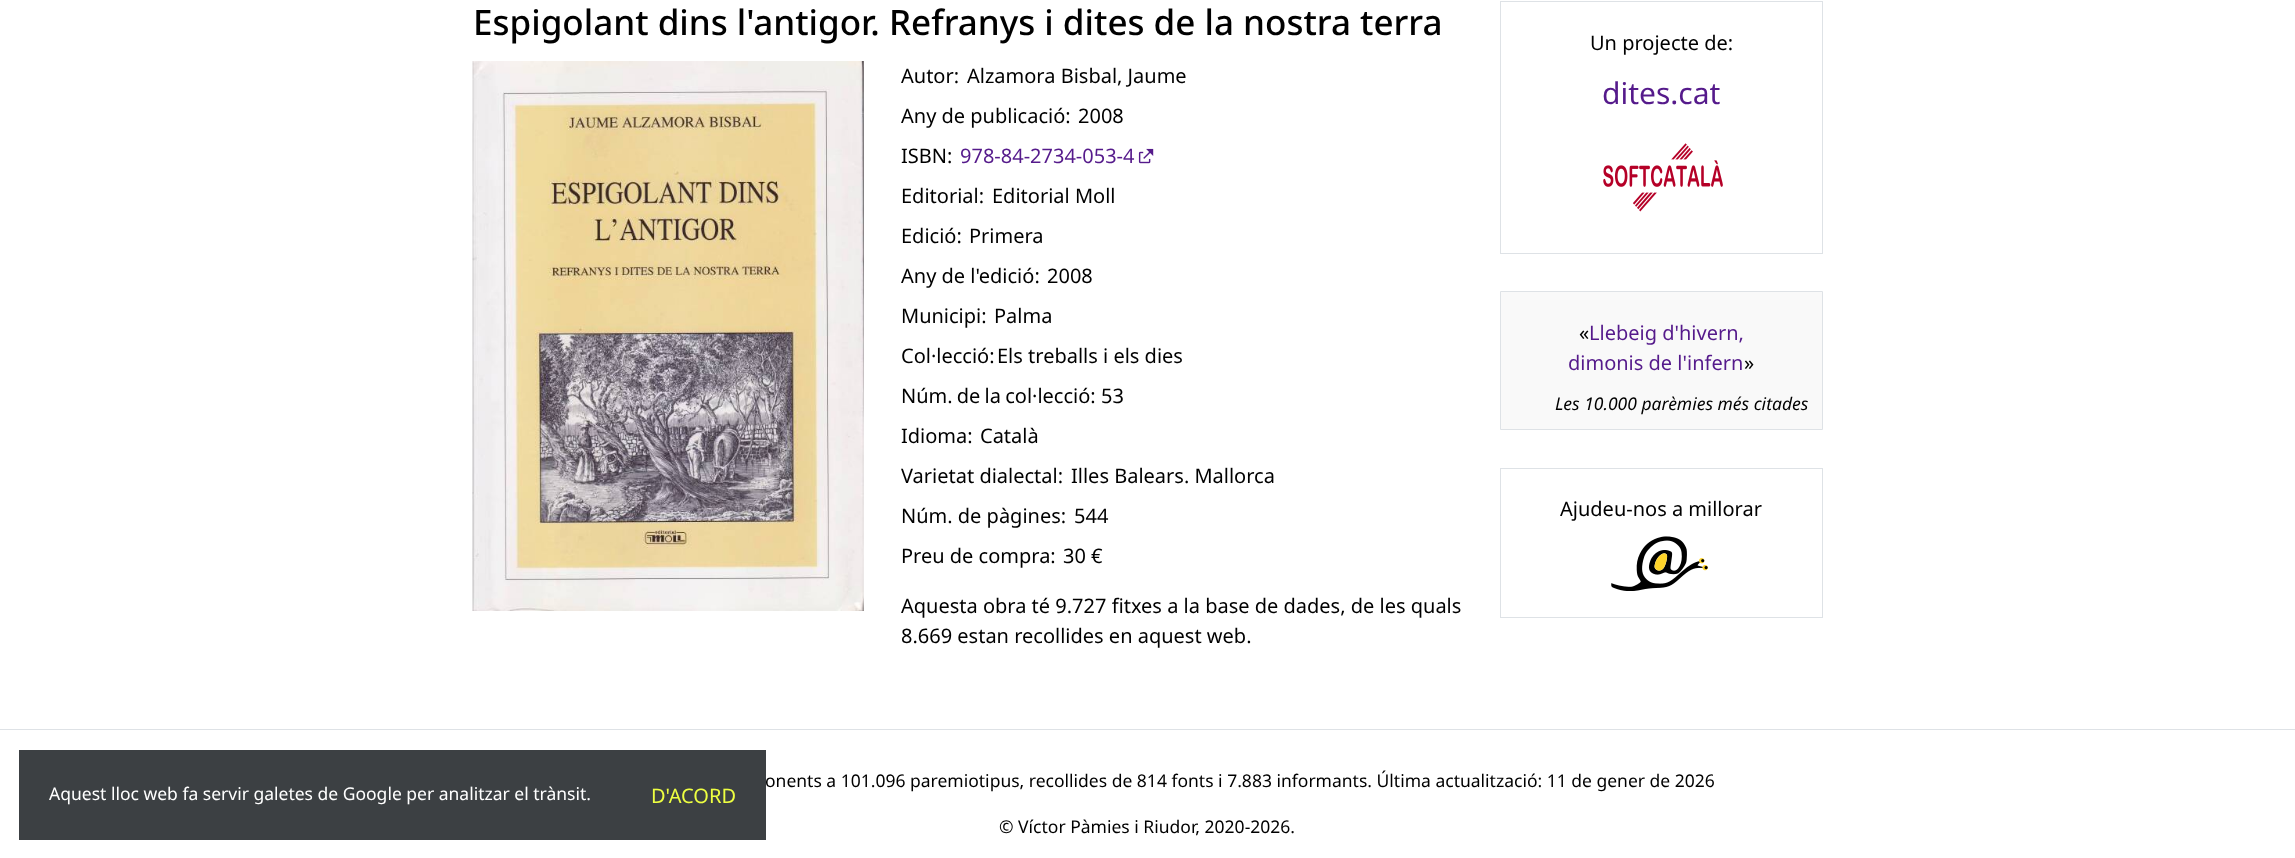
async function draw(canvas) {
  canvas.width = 2295
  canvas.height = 858
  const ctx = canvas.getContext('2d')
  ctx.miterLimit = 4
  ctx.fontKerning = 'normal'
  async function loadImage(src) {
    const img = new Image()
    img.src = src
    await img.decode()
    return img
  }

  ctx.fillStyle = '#fff'
  ctx.fillRect(0, 0, 2295, 858)
  ctx.font = '500 35px Noto Sans'
  ctx.fillStyle = '#000'
  ctx.fillText('Espigolant dins l\'antigor. Refranys i dites de la nostra terra', 473, 35)
  ctx.drawImage(await loadImage('image0.png'), 472, 61, 392, 550)
  ctx.font = '20px Noto Sans'
  ctx.fillText('Autor:', 901, 83)
  ctx.fillText('Alzamora Bisbal, Jaume', 967, 83)
  ctx.fillText('Any de publicació:', 901, 123)
  ctx.fillText('2008', 1078, 123)
  ctx.fillText('ISBN:', 901, 163)
  ctx.fillStyle = '#551a8b'
  ctx.fillText('978-84-2734-053-4', 960, 163)
  ctx.drawImage(await loadImage('image1.png'), 1138, 148, 16, 16)
  ctx.fillStyle = '#000'
  ctx.fillText('Editorial:', 901, 203)
  ctx.fillText('Editorial Moll', 992, 203)
  ctx.fillText('Edició:', 901, 243)
  ctx.fillText('Primera', 969, 243)
  ctx.fillText('Any de l\'edició:', 901, 283)
  ctx.fillText('2008', 1047, 283)
  ctx.fillText('Municipi:', 901, 323)
  ctx.fillText('Palma', 994, 323)
  ctx.fillText('Col·lecció:', 901, 363)
  ctx.fillText('Els treballs i els dies', 997, 363)
  ctx.wordSpacing = '-1px'
  ctx.fillText('Núm. de la col·lecció:', 901, 403)
  ctx.wordSpacing = '0px'
  ctx.fillText('53', 1101, 403)
  ctx.fillText('Idioma:', 901, 443)
  ctx.fillText('Català', 980, 443)
  ctx.fillText('Varietat dialectal:', 901, 483)
  ctx.fillText('Illes Balears. Mallorca', 1071, 483)
  ctx.fillText('Núm. de pàgines:', 901, 523)
  ctx.fillText('544', 1074, 523)
  ctx.fillText('Preu de compra:', 901, 563)
  ctx.fillText('30 €', 1063, 563)
  ctx.fillText('Aquesta obra té 9.727 fitxes a la base de dades, de les quals', 901, 613)
  ctx.fillText('8.669 estan recollides en aquest web.', 901, 643)
  ctx.strokeStyle = '#dee2e6'
  ctx.strokeRect(1500.5, 1.5, 322, 252)
  ctx.fillText('Un projecte de:', 1590, 50)
  ctx.font = '30px Noto Sans'
  ctx.fillStyle = '#551a8b'
  ctx.fillText('dites.cat', 1602, 104)
  ctx.drawImage(await loadImage('image2.png'), 1603, 143, 120, 69)
  ctx.fillStyle = '#f9f9f9'
  ctx.beginPath()
  ctx.rect(1500.5, 291.5, 322, 138)
  ctx.fill()
  ctx.stroke()
  ctx.font = '20px Noto Sans'
  ctx.fillStyle = '#000'
  ctx.fillText('«', 1579, 340)
  ctx.fillStyle = '#551a8b'
  ctx.fillText('Llebeig d\'hivern,', 1589, 340)
  ctx.fillText('dimonis de l\'infern', 1568, 370)
  ctx.fillStyle = '#000'
  ctx.fillText('»', 1744, 370)
  ctx.font = 'italic 17.5px Noto Sans'
  ctx.fillText('Les 10.000 parèmies més citades', 1555, 410)
  ctx.strokeRect(1500.5, 468.5, 322, 149)
  ctx.font = '20px Noto Sans'
  ctx.fillText('Ajudeu-nos a millorar', 1560, 516)
  ctx.drawImage(await loadImage('image3.png'), 1611, 536, 97, 55)
  ctx.font = '17.5px Noto Sans'
  ctx.fillText('onents a 101.096 paremiotipus, recollides de 814 fonts i 7.883 informants. Última actualització: 11 de gener de 2026', 765, 787)
  ctx.fillStyle = '#3c4043'
  ctx.fillRect(19, 750, 747, 90)
  ctx.fillStyle = '#fff'
  ctx.fillText('Aquest lloc web fa servir galetes de Google per analitzar el trànsit.', 49, 800)
  ctx.font = '20px Noto Sans'
  ctx.fillStyle = '#eeff41'
  ctx.fillText('D\'ACORD', 651, 803)
  ctx.fillStyle = '#dee2e6'
  ctx.fillRect(0, 729, 2295, 1)
  ctx.font = '17.5px Noto Sans'
  ctx.fillStyle = '#000'
  ctx.fillText('© Víctor Pàmies i Riudor, 2020-2026.', 999, 833)
}

draw(document.querySelector('canvas'))
